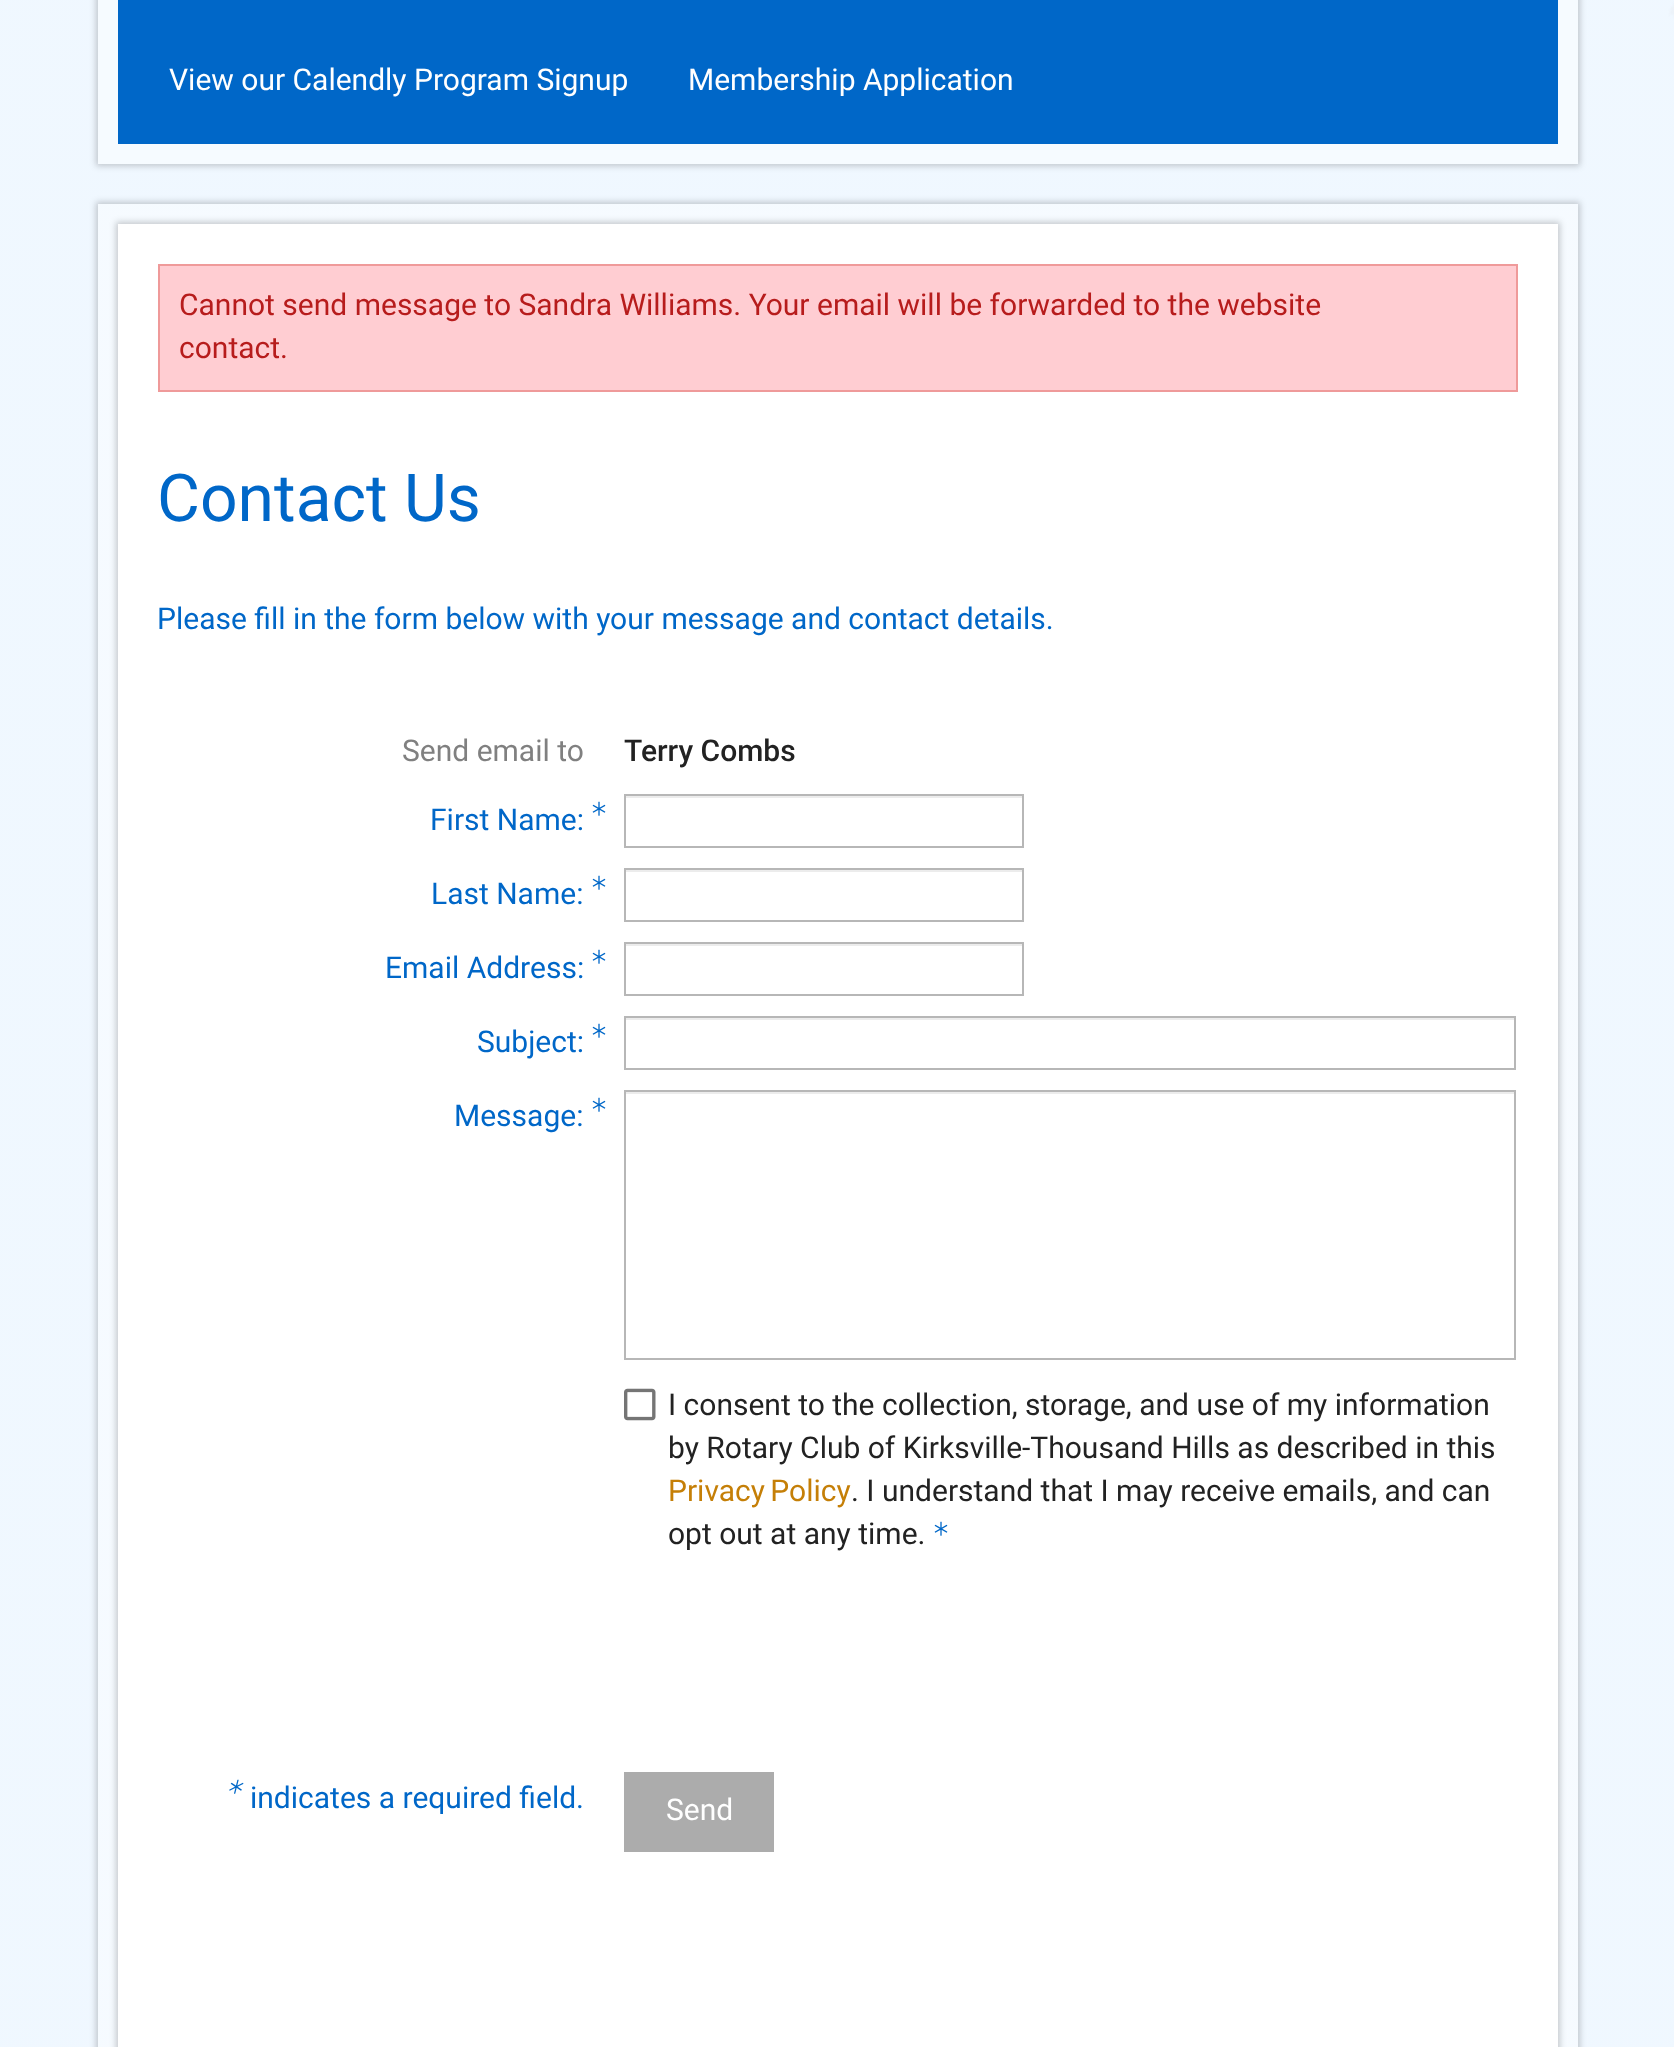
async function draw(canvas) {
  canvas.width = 1674
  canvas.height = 2047
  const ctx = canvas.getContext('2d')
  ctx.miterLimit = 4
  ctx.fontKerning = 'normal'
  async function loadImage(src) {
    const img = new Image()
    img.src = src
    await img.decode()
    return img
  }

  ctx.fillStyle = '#fff'
  ctx.fillRect(0, 0, 1674, 2047)
  ctx.drawImage(await loadImage('image0.png'), 0, 0, 1674, 2047)
  ctx.fillStyle = '#00000033'
  ctx.filter = 'blur(3px)'
  ctx.beginPath()
  ctx.rect(96, -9, 1484, 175)
  ctx.fill()
  ctx.filter = 'none'
  ctx.fillStyle = '#f6fbff'
  ctx.fillRect(98, 0, 1480, 164)
  ctx.fillStyle = '#0067c8'
  ctx.fillRect(118, 0, 1440, 144)
  ctx.font = '30px Roboto'
  ctx.fillStyle = '#fff'
  ctx.fillText('View our Calendly Program Signup', 169, 90)
  ctx.fillText('Membership Application', 688, 90)
  ctx.save()
  ctx.beginPath()
  ctx.moveTo(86, 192)
  ctx.lineTo(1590, 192)
  ctx.lineTo(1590, 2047)
  ctx.lineTo(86, 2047)
  ctx.closePath()
  ctx.moveTo(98, 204)
  ctx.lineTo(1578, 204)
  ctx.lineTo(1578, 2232)
  ctx.lineTo(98, 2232)
  ctx.closePath()
  ctx.clip('evenodd')
  ctx.fillStyle = '#00000033'
  ctx.filter = 'blur(3px)'
  ctx.beginPath()
  ctx.rect(96, 202, 1484, 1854)
  ctx.fill()
  ctx.filter = 'none'
  ctx.restore()
  ctx.fillStyle = '#ffffff66'
  ctx.fillRect(98, 204, 1480, 1843)
  ctx.fillStyle = '#00000033'
  ctx.filter = 'blur(3px)'
  ctx.beginPath()
  ctx.rect(116, 222, 1444, 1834)
  ctx.fill()
  ctx.filter = 'none'
  ctx.fillStyle = '#fff'
  ctx.fillRect(118, 224, 1440, 1823)
  ctx.fillStyle = '#ffcdd2'
  ctx.beginPath()
  ctx.rect(159, 265, 1358, 126)
  ctx.fill()
  ctx.strokeStyle = '#ef9a9a'
  ctx.lineWidth = 2
  ctx.stroke()
  ctx.fillStyle = '#b71c1c'
  ctx.fillText('Cannot send message to Sandra Williams. Your email will be forwarded to the website', 179, 315)
  ctx.fillText('contact.', 179, 358)
  ctx.font = '66px Roboto'
  ctx.fillStyle = '#0067c8'
  ctx.fillText('Contact Us', 157, 521)
  ctx.font = '30px Roboto'
  ctx.fillText('Please fill in the form below with your message and contact details.', 157, 629)
  ctx.fillStyle = '#808080'
  ctx.fillText('Send email to', 402, 761)
  ctx.font = '500 30px Roboto'
  ctx.fillStyle = '#222'
  ctx.fillText('Terry Combs', 624, 761)
  ctx.font = '30px Roboto'
  ctx.fillStyle = '#0067c8'
  ctx.fillText('First Name:', 430, 830)
  ctx.drawImage(await loadImage('image1.png'), 592, 801, 14, 15)
  ctx.fillStyle = '#ececec'
  ctx.fillRect(626, 796, 396, 2)
  ctx.strokeStyle = '#b7b7b7'
  ctx.strokeRect(625, 795, 398, 52)
  ctx.fillStyle = '#0067c8'
  ctx.fillText('Last Name:', 431, 904)
  ctx.drawImage(await loadImage('image1.png'), 592, 875, 14, 15)
  ctx.fillStyle = '#ececec'
  ctx.fillRect(626, 870, 396, 2)
  ctx.strokeRect(625, 869, 398, 52)
  ctx.fillStyle = '#0067c8'
  ctx.fillText('Email Address:', 385, 978)
  ctx.drawImage(await loadImage('image1.png'), 592, 949, 14, 15)
  ctx.fillStyle = '#ececec'
  ctx.fillRect(626, 944, 396, 2)
  ctx.strokeRect(625, 943, 398, 52)
  ctx.fillStyle = '#0067c8'
  ctx.fillText('Subject:', 477, 1052)
  ctx.drawImage(await loadImage('image1.png'), 592, 1023, 14, 15)
  ctx.fillStyle = '#ececec'
  ctx.fillRect(626, 1018, 888, 2)
  ctx.strokeRect(625, 1017, 890, 52)
  ctx.fillStyle = '#0067c8'
  ctx.fillText('Message:', 454, 1126)
  ctx.drawImage(await loadImage('image1.png'), 592, 1097, 14, 15)
  ctx.fillStyle = '#ececec'
  ctx.fillRect(626, 1092, 888, 2)
  ctx.strokeRect(625, 1091, 890, 268)
  ctx.drawImage(await loadImage('image2.png'), 624, 1388, 32, 33)
  ctx.fillStyle = '#222'
  ctx.fillText('I consent to the collection, storage, and use of my information', 668, 1415)
  ctx.fillText('by Rotary Club of Kirksville-Thousand Hills as described in this', 668, 1458)
  ctx.wordSpacing = '-2px'
  ctx.fillStyle = '#c57f07'
  ctx.fillText('Privacy Policy', 668, 1501)
  ctx.wordSpacing = '0px'
  ctx.fillStyle = '#222'
  ctx.fillText('. I understand that I may receive emails, and can', 851, 1501)
  ctx.fillText('opt out at any time.', 668, 1544)
  ctx.drawImage(await loadImage('image1.png'), 934, 1521, 14, 15)
  ctx.drawImage(await loadImage('image3.png'), 229, 1779, 15, 15)
  ctx.fillStyle = '#0067c8'
  ctx.fillText('indicates a required field.', 250, 1808)
  ctx.fillStyle = '#acacac'
  ctx.fillRect(624, 1772, 150, 80)
  ctx.fillStyle = '#fff'
  ctx.fillText('Send', 666, 1820)
}

draw(document.querySelector('canvas'))
